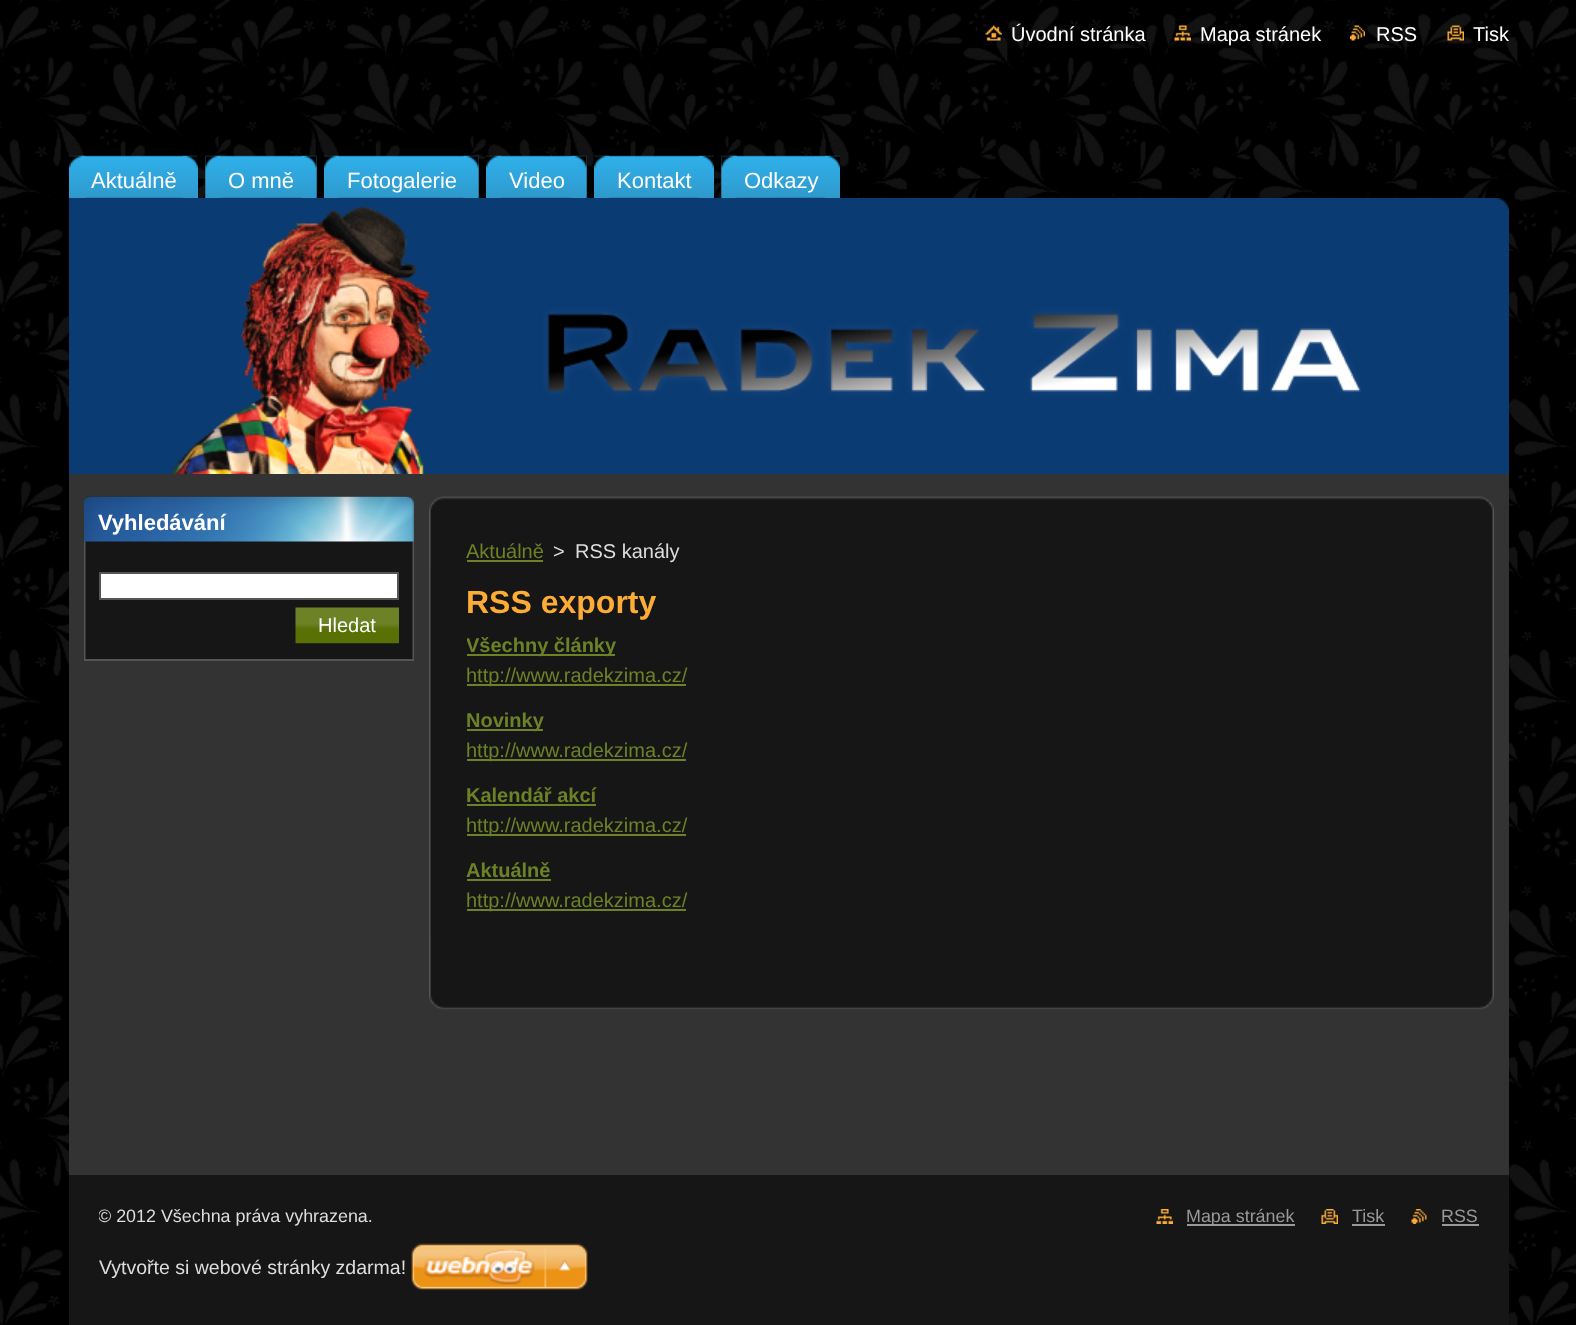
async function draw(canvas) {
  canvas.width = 1576
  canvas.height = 1325
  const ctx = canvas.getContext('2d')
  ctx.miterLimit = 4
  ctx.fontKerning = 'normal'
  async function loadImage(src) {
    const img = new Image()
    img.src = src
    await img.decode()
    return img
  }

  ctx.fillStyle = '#fff'
  ctx.fillRect(0, 0, 1576, 1325)
  ctx.drawImage(await loadImage('image0.png'), 0, 0, 1576, 1325)
  ctx.fillStyle = '#333'
  ctx.fillRect(69, 474, 1440, 701)
  ctx.drawImage(await loadImage('image1.png'), 985, 25, 17, 16)
  ctx.font = '20px Liberation Sans'
  ctx.fillStyle = '#fff'
  ctx.fillText('Úvodní stránka', 1011, 41)
  ctx.drawImage(await loadImage('image2.png'), 1174, 25, 17, 16)
  ctx.fillText('Mapa stránek', 1200, 41)
  ctx.drawImage(await loadImage('image3.png'), 1350, 25, 15, 16)
  ctx.fillText('RSS', 1376, 41)
  ctx.drawImage(await loadImage('image4.png'), 1447, 25, 17, 16)
  ctx.fillText('Tisk', 1473, 41)
  ctx.drawImage(await loadImage('image5.png'), 69, 155, 129, 43)
  ctx.drawImage(await loadImage('image6.png'), 69, 155, 17, 43)
  ctx.drawImage(await loadImage('image7.png'), 183, 155, 15, 43)
  ctx.font = '22px Liberation Sans'
  ctx.fillText('Aktuálně', 91, 188)
  ctx.drawImage(await loadImage('image8.png'), 205, 155, 112, 43)
  ctx.drawImage(await loadImage('image9.png'), 205, 155, 16, 43)
  ctx.drawImage(await loadImage('image10.png'), 301, 155, 16, 43)
  ctx.fillText('O mně', 228, 188)
  ctx.drawImage(await loadImage('image11.png'), 324, 155, 155, 43)
  ctx.drawImage(await loadImage('image12.png'), 324, 155, 15, 43)
  ctx.drawImage(await loadImage('image13.png'), 463, 155, 16, 43)
  ctx.fillText('Fotogalerie', 347, 188)
  ctx.drawImage(await loadImage('image14.png'), 486, 155, 101, 43)
  ctx.drawImage(await loadImage('image15.png'), 486, 155, 15, 43)
  ctx.drawImage(await loadImage('image16.png'), 571, 155, 16, 43)
  ctx.fillText('Video', 509, 188)
  ctx.drawImage(await loadImage('image17.png'), 594, 155, 120, 43)
  ctx.drawImage(await loadImage('image18.png'), 594, 155, 15, 43)
  ctx.drawImage(await loadImage('image7.png'), 699, 155, 15, 43)
  ctx.fillText('Kontakt', 617, 188)
  ctx.drawImage(await loadImage('image19.png'), 721, 155, 119, 43)
  ctx.drawImage(await loadImage('image20.png'), 721, 155, 16, 43)
  ctx.drawImage(await loadImage('image21.png'), 825, 155, 15, 43)
  ctx.fillText('Odkazy', 744, 188)
  ctx.fillStyle = '#0b3b73'
  ctx.fillRect(69, 198, 1440, 276)
  ctx.drawImage(await loadImage('image22.png'), 1496, 198, 13, 13)
  ctx.drawImage(await loadImage('image23.png'), 170, 206, 1191, 268)
  ctx.drawImage(await loadImage('image24.png'), 84, 496, 330, 163)
  ctx.fillStyle = '#555'
  ctx.fillRect(84, 659, 330, 2)
  ctx.drawImage(await loadImage('image25.png'), 84, 496, 330, 46)
  ctx.font = 'bold 22px Liberation Sans'
  ctx.fillStyle = '#fff'
  ctx.fillText('Vyhledávání', 98, 530)
  ctx.beginPath()
  ctx.rect(100, 573, 298, 26)
  ctx.fill()
  ctx.strokeStyle = '#555'
  ctx.lineWidth = 2
  ctx.stroke()
  ctx.drawImage(await loadImage('image26.png'), 295, 607, 104, 37)
  ctx.font = '20px Liberation Sans'
  ctx.fillText('Hledat', 318, 632)
  ctx.drawImage(await loadImage('image27.png'), 429, 496, 1065, 75)
  ctx.drawImage(await loadImage('image28.png'), 429, 935, 1065, 75)
  ctx.drawImage(await loadImage('image29.png'), 429, 571, 1065, 364)
  ctx.fillStyle = '#6d8227'
  ctx.fillText('Aktuálně', 466, 558)
  ctx.fillRect(467, 560, 76, 2)
  ctx.fillStyle = '#ddd'
  ctx.fillText('>', 553, 558)
  ctx.fillText('RSS kanály', 575, 558)
  ctx.font = 'bold 32px Liberation Sans'
  ctx.fillStyle = '#fdad36'
  ctx.fillText('RSS exporty', 466, 613)
  ctx.fillStyle = '#6d8227'
  ctx.fillRect(467, 654, 148, 2)
  ctx.save()
  ctx.beginPath()
  ctx.rect(467, 635, 990, 300)
  ctx.clip()
  ctx.font = 'bold 20px Liberation Sans'
  ctx.fillText('Všechny články', 466, 652)
  ctx.restore()
  ctx.fillRect(467, 684, 219, 2)
  ctx.font = '20px Liberation Sans'
  ctx.fillText('http://www.radekzima.cz/', 466, 682)
  ctx.fillRect(467, 729, 76, 2)
  ctx.font = 'bold 20px Liberation Sans'
  ctx.fillText('Novinky', 466, 727)
  ctx.fillRect(467, 759, 219, 2)
  ctx.font = '20px Liberation Sans'
  ctx.fillText('http://www.radekzima.cz/', 466, 757)
  ctx.font = 'bold 20px Liberation Sans'
  ctx.fillText('Kalendář akcí', 466, 802)
  ctx.fillRect(467, 804, 129, 2)
  ctx.fillRect(467, 834, 219, 2)
  ctx.font = '20px Liberation Sans'
  ctx.fillText('http://www.radekzima.cz/', 466, 832)
  ctx.font = 'bold 20px Liberation Sans'
  ctx.fillText('Aktuálně', 466, 877)
  ctx.fillRect(467, 879, 84, 2)
  ctx.fillRect(467, 909, 219, 2)
  ctx.font = '20px Liberation Sans'
  ctx.fillText('http://www.radekzima.cz/', 466, 907)
  ctx.fillStyle = '#161616'
  ctx.fillRect(69, 1175, 1440, 150)
  ctx.save()
  ctx.beginPath()
  ctx.rect(99, 1205, 870, 27)
  ctx.clip()
  ctx.font = '17.9px Liberation Sans'
  ctx.fillStyle = '#ddd'
  ctx.fillText('© 2012 Všechna práva vyhrazena.', 98, 1222)
  ctx.restore()
  ctx.drawImage(await loadImage('image30.png'), 1156, 1209, 17, 15)
  ctx.fillStyle = '#999'
  ctx.fillRect(1187, 1224, 108, 2)
  ctx.font = '17.9px Liberation Sans'
  ctx.fillText('Mapa stránek', 1186, 1222)
  ctx.drawImage(await loadImage('image31.png'), 1321, 1209, 17, 15)
  ctx.fillText('Tisk', 1352, 1222)
  ctx.fillRect(1352, 1224, 33, 2)
  ctx.drawImage(await loadImage('image32.png'), 1411, 1209, 16, 15)
  ctx.fillText('RSS', 1441, 1222)
  ctx.fillRect(1442, 1224, 37, 2)
  ctx.font = '19.5px Liberation Sans'
  ctx.fillStyle = '#ddd'
  ctx.fillText('Vytvořte si webové stránky zdarma!', 99, 1274)
  ctx.drawImage(await loadImage('image33.png'), 411, 1243, 177, 47)
}

draw(document.querySelector('canvas'))
